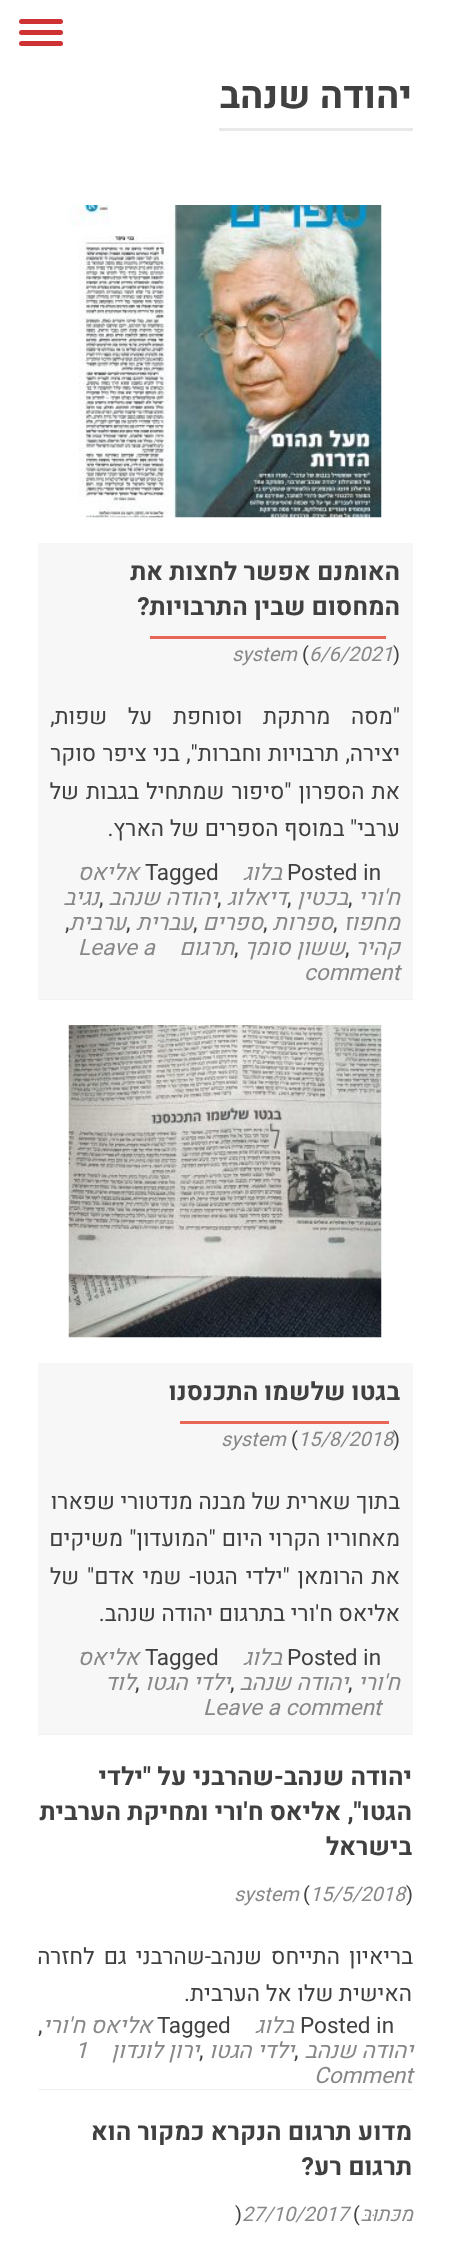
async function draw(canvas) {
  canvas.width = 450
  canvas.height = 2242
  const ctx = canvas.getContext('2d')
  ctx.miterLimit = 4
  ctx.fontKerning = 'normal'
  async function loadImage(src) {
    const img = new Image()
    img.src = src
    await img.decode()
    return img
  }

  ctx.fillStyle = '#fff'
  ctx.fillRect(0, 0, 450, 2242)
  ctx.fillStyle = '#ce3233'
  ctx.beginPath()
  ctx.roundRect(19, 19, 44, 5, 2.5)
  ctx.fill()
  ctx.beginPath()
  ctx.roundRect(19, 30, 44, 5, 2.5)
  ctx.fill()
  ctx.beginPath()
  ctx.roundRect(19, 41, 44, 5, 2.5)
  ctx.fill()
  ctx.direction = 'rtl'
  ctx.font = 'bold 37.5px Heebo'
  ctx.fillStyle = '#404040'
  ctx.fillText('יהודה שנהב', 412, 108)
  ctx.fillStyle = '#e9e9e9'
  ctx.fillRect(219, 128, 194, 3)
  ctx.fillStyle = '#f2f2f2'
  ctx.fillRect(38, 999, 375, 1)
  ctx.drawImage(await loadImage('image0.png'), 69, 205, 313, 313)
  ctx.fillStyle = '#f7f7f7'
  ctx.fillRect(38, 543, 375, 456)
  ctx.font = 'bold 25px Heebo'
  ctx.fillStyle = '#404040'
  ctx.fillText('האומנם אפשר לחצות את', 400, 580)
  ctx.fillText('המחסום שבין התרבויות?', 400, 615)
  ctx.fillStyle = '#e96656'
  ctx.fillRect(150, 636, 236, 3)
  ctx.direction = 'ltr'
  ctx.font = '20px Heebo'
  ctx.fillStyle = '#404040'
  ctx.fillText(')', 393, 661)
  ctx.font = 'italic 20px Heebo'
  ctx.fillStyle = '#888'
  ctx.fillText('6/6/2021', 309, 661)
  ctx.font = '20px Heebo'
  ctx.fillStyle = '#404040'
  ctx.fillText('(', 302, 661)
  ctx.font = 'italic 20px Heebo'
  ctx.fillStyle = '#888'
  ctx.fillText('system', 232, 661)
  ctx.wordSpacing = '15px'
  ctx.direction = 'rtl'
  ctx.font = '22.5px Heebo'
  ctx.fillStyle = '#404040'
  ctx.fillText('"מסה מרתקת וסוחפת על שפות,', 400, 724)
  ctx.wordSpacing = '0.75px'
  ctx.fillText('יצירה, תרבויות וחברות", בני ציפר סוקר', 400, 761)
  ctx.wordSpacing = '1.5px'
  ctx.fillText('את הספרון "סיפור שמתחיל בגבות של', 400, 799)
  ctx.wordSpacing = '0px'
  ctx.fillText('ערבי" במוסף הספרים של הארץ.', 400, 836)
  ctx.direction = 'ltr'
  ctx.fillText('Posted in', 287, 880)
  ctx.direction = 'rtl'
  ctx.font = 'italic 22.5px Heebo'
  ctx.fillStyle = '#888'
  ctx.fillText('בלוג', 282, 880)
  ctx.direction = 'ltr'
  ctx.font = '22.5px Heebo'
  ctx.fillStyle = '#404040'
  ctx.fillText('Tagged', 145, 880)
  ctx.direction = 'rtl'
  ctx.font = 'italic 22.5px Heebo'
  ctx.fillStyle = '#888'
  ctx.fillText('אליאס', 139, 880)
  ctx.fillText('ח\'ורי', 400, 905)
  ctx.fillText('בכטין', 348, 905)
  ctx.direction = 'ltr'
  ctx.font = '22.5px Heebo'
  ctx.fillStyle = '#404040'
  ctx.fillText(',', 287, 905)
  ctx.direction = 'rtl'
  ctx.font = 'italic 22.5px Heebo'
  ctx.fillStyle = '#888'
  ctx.fillText('דיאלוג', 287, 905)
  ctx.direction = 'ltr'
  ctx.font = '22.5px Heebo'
  ctx.fillStyle = '#404040'
  ctx.fillText(',', 217, 905)
  ctx.direction = 'rtl'
  ctx.font = 'italic 22.5px Heebo'
  ctx.fillStyle = '#888'
  ctx.fillText('יהודה שנהב', 217, 905)
  ctx.direction = 'ltr'
  ctx.font = '22.5px Heebo'
  ctx.fillStyle = '#404040'
  ctx.fillText(',', 99, 905)
  ctx.direction = 'rtl'
  ctx.font = 'italic 22.5px Heebo'
  ctx.fillStyle = '#888'
  ctx.fillText('נגיב', 99, 905)
  ctx.direction = 'ltr'
  ctx.font = '22.5px Heebo'
  ctx.fillStyle = '#404040'
  ctx.fillText(',', 348, 905)
  ctx.direction = 'rtl'
  ctx.font = 'italic 22.5px Heebo'
  ctx.fillStyle = '#888'
  ctx.fillText('מחפוז', 400, 930)
  ctx.direction = 'ltr'
  ctx.font = '22.5px Heebo'
  ctx.fillStyle = '#404040'
  ctx.fillText(',', 333, 930)
  ctx.direction = 'rtl'
  ctx.font = 'italic 22.5px Heebo'
  ctx.fillStyle = '#888'
  ctx.fillText('ספרות', 333, 930)
  ctx.direction = 'ltr'
  ctx.font = '22.5px Heebo'
  ctx.fillStyle = '#404040'
  ctx.fillText(',', 263, 930)
  ctx.direction = 'rtl'
  ctx.font = 'italic 22.5px Heebo'
  ctx.fillStyle = '#888'
  ctx.fillText('ספרים', 263, 930)
  ctx.direction = 'ltr'
  ctx.font = '22.5px Heebo'
  ctx.fillStyle = '#404040'
  ctx.fillText(',', 193, 930)
  ctx.direction = 'rtl'
  ctx.font = 'italic 22.5px Heebo'
  ctx.fillStyle = '#888'
  ctx.fillText('עברית', 193, 930)
  ctx.direction = 'ltr'
  ctx.font = '22.5px Heebo'
  ctx.fillStyle = '#404040'
  ctx.fillText(',', 126, 930)
  ctx.direction = 'rtl'
  ctx.font = 'italic 22.5px Heebo'
  ctx.fillStyle = '#888'
  ctx.fillText('ערבית', 126, 930)
  ctx.direction = 'ltr'
  ctx.font = '22.5px Heebo'
  ctx.fillStyle = '#404040'
  ctx.fillText(',', 65, 930)
  ctx.direction = 'rtl'
  ctx.font = 'italic 22.5px Heebo'
  ctx.fillStyle = '#888'
  ctx.fillText('קהיר', 400, 955)
  ctx.direction = 'ltr'
  ctx.font = '22.5px Heebo'
  ctx.fillStyle = '#404040'
  ctx.fillText(',', 345, 955)
  ctx.direction = 'rtl'
  ctx.font = 'italic 22.5px Heebo'
  ctx.fillStyle = '#888'
  ctx.fillText('ששון סומך', 345, 955)
  ctx.direction = 'ltr'
  ctx.font = '22.5px Heebo'
  ctx.fillStyle = '#404040'
  ctx.fillText(',', 234, 955)
  ctx.direction = 'rtl'
  ctx.font = 'italic 22.5px Heebo'
  ctx.fillStyle = '#888'
  ctx.fillText('תרגום', 234, 955)
  ctx.direction = 'ltr'
  ctx.fillText('Leave a', 78, 955)
  ctx.fillText('comment', 304, 980)
  ctx.fillStyle = '#f2f2f2'
  ctx.fillRect(38, 1734, 375, 1)
  ctx.drawImage(await loadImage('image1.png'), 68, 1025, 314, 313)
  ctx.fillStyle = '#f7f7f7'
  ctx.fillRect(38, 1363, 375, 371)
  ctx.direction = 'rtl'
  ctx.font = 'bold 25px Heebo'
  ctx.fillStyle = '#404040'
  ctx.fillText('בגטו שלשמו התכנסנו', 400, 1400)
  ctx.fillStyle = '#e96656'
  ctx.fillRect(180, 1421, 209, 3)
  ctx.direction = 'ltr'
  ctx.font = 'italic 20px Heebo'
  ctx.fillStyle = '#888'
  ctx.fillText('15/8/2018', 298, 1446)
  ctx.font = '20px Heebo'
  ctx.fillStyle = '#404040'
  ctx.fillText(')', 393, 1446)
  ctx.fillText('(', 291, 1446)
  ctx.font = 'italic 20px Heebo'
  ctx.fillStyle = '#888'
  ctx.fillText('system', 221, 1446)
  ctx.direction = 'rtl'
  ctx.font = '22.5px Heebo'
  ctx.fillStyle = '#404040'
  ctx.fillText('בתוך שארית של מבנה מנדטורי שפארו', 400, 1509)
  ctx.wordSpacing = '0.5px'
  ctx.fillText('מאחוריו הקרוי היום "המועדון" משיקים', 400, 1546)
  ctx.wordSpacing = '2.25px'
  ctx.fillText('את הרומאן "ילדי הגטו- שמי אדם" של', 400, 1584)
  ctx.wordSpacing = '0px'
  ctx.fillText('אליאס ח\'ורי בתרגום יהודה שנהב.', 400, 1621)
  ctx.direction = 'ltr'
  ctx.fillText('Posted in', 287, 1665)
  ctx.direction = 'rtl'
  ctx.font = 'italic 22.5px Heebo'
  ctx.fillStyle = '#888'
  ctx.fillText('בלוג', 282, 1665)
  ctx.direction = 'ltr'
  ctx.font = '22.5px Heebo'
  ctx.fillStyle = '#404040'
  ctx.fillText('Tagged', 145, 1665)
  ctx.direction = 'rtl'
  ctx.font = 'italic 22.5px Heebo'
  ctx.fillStyle = '#888'
  ctx.fillText('אליאס', 139, 1665)
  ctx.fillText('ח\'ורי', 400, 1690)
  ctx.direction = 'ltr'
  ctx.font = '22.5px Heebo'
  ctx.fillStyle = '#404040'
  ctx.fillText(',', 348, 1690)
  ctx.direction = 'rtl'
  ctx.font = 'italic 22.5px Heebo'
  ctx.fillStyle = '#888'
  ctx.fillText('יהודה שנהב', 348, 1690)
  ctx.direction = 'ltr'
  ctx.font = '22.5px Heebo'
  ctx.fillStyle = '#404040'
  ctx.fillText(',', 230, 1690)
  ctx.direction = 'rtl'
  ctx.font = 'italic 22.5px Heebo'
  ctx.fillStyle = '#888'
  ctx.fillText('ילדי הגטו', 230, 1690)
  ctx.direction = 'ltr'
  ctx.font = '22.5px Heebo'
  ctx.fillStyle = '#404040'
  ctx.fillText(',', 135, 1690)
  ctx.direction = 'rtl'
  ctx.font = 'italic 22.5px Heebo'
  ctx.fillStyle = '#888'
  ctx.fillText('לוד', 135, 1690)
  ctx.direction = 'ltr'
  ctx.fillText('Leave a comment', 203, 1715)
  ctx.fillStyle = '#f2f2f2'
  ctx.fillRect(38, 2089, 375, 1)
  ctx.direction = 'rtl'
  ctx.font = 'bold 25px Heebo'
  ctx.fillStyle = '#404040'
  ctx.fillText('יהודה שנהב-שהרבני על "ילדי', 412, 1785)
  ctx.fillText('הגטו", אליאס ח\'ורי ומחיקת הערבית', 412, 1820)
  ctx.fillText('בישראל', 412, 1855)
  ctx.direction = 'ltr'
  ctx.font = 'italic 20px Heebo'
  ctx.fillStyle = '#888'
  ctx.fillText('15/5/2018', 310, 1901)
  ctx.font = '20px Heebo'
  ctx.fillStyle = '#404040'
  ctx.fillText(')', 406, 1901)
  ctx.fillText('(', 303, 1901)
  ctx.font = 'italic 20px Heebo'
  ctx.fillStyle = '#888'
  ctx.fillText('system', 234, 1901)
  ctx.wordSpacing = '3.5px'
  ctx.direction = 'rtl'
  ctx.font = '22.5px Heebo'
  ctx.fillStyle = '#404040'
  ctx.fillText('בריאיון התייחס שנהב-שהרבני גם לחזרה', 413, 1964)
  ctx.wordSpacing = '0px'
  ctx.fillText('האישית שלו אל הערבית.', 412, 2001)
  ctx.direction = 'ltr'
  ctx.fillText('Posted in', 300, 2033)
  ctx.direction = 'rtl'
  ctx.font = 'italic 22.5px Heebo'
  ctx.fillStyle = '#888'
  ctx.fillText('בלוג', 294, 2033)
  ctx.direction = 'ltr'
  ctx.font = '22.5px Heebo'
  ctx.fillStyle = '#404040'
  ctx.fillText('Tagged', 157, 2033)
  ctx.direction = 'rtl'
  ctx.font = 'italic 22.5px Heebo'
  ctx.fillStyle = '#888'
  ctx.fillText('אליאס ח\'ורי', 152, 2033)
  ctx.direction = 'ltr'
  ctx.font = '22.5px Heebo'
  ctx.fillStyle = '#404040'
  ctx.fillText(',', 38, 2033)
  ctx.direction = 'rtl'
  ctx.font = 'italic 22.5px Heebo'
  ctx.fillStyle = '#888'
  ctx.fillText('יהודה שנהב', 413, 2058)
  ctx.direction = 'ltr'
  ctx.font = '22.5px Heebo'
  ctx.fillStyle = '#404040'
  ctx.fillText(',', 294, 2058)
  ctx.direction = 'rtl'
  ctx.font = 'italic 22.5px Heebo'
  ctx.fillStyle = '#888'
  ctx.fillText('ילדי הגטו', 294, 2058)
  ctx.direction = 'ltr'
  ctx.font = '22.5px Heebo'
  ctx.fillStyle = '#404040'
  ctx.fillText(',', 199, 2058)
  ctx.direction = 'rtl'
  ctx.font = 'italic 22.5px Heebo'
  ctx.fillStyle = '#888'
  ctx.fillText('ירון לונדון', 199, 2058)
  ctx.direction = 'ltr'
  ctx.fillText('1', 75, 2058)
  ctx.fillText('Comment', 314, 2083)
  ctx.direction = 'rtl'
  ctx.font = 'bold 25px Heebo'
  ctx.fillStyle = '#404040'
  ctx.fillText('מדוע תרגום הנקרא כמקור הוא', 412, 2140)
  ctx.fillText('תרגום רע?', 412, 2175)
  ctx.font = 'italic 20px Heebo'
  ctx.fillStyle = '#888'
  ctx.fillText('מכּתוּבּ', 413, 2221)
  ctx.direction = 'ltr'
  ctx.font = '20px Heebo'
  ctx.fillStyle = '#404040'
  ctx.fillText('(', 353, 2221)
  ctx.font = 'italic 20px Heebo'
  ctx.fillStyle = '#888'
  ctx.fillText('27/10/2017', 242, 2221)
  ctx.font = '20px Heebo'
  ctx.fillStyle = '#404040'
  ctx.fillText(')', 235, 2221)
}

draw(document.querySelector('canvas'))
